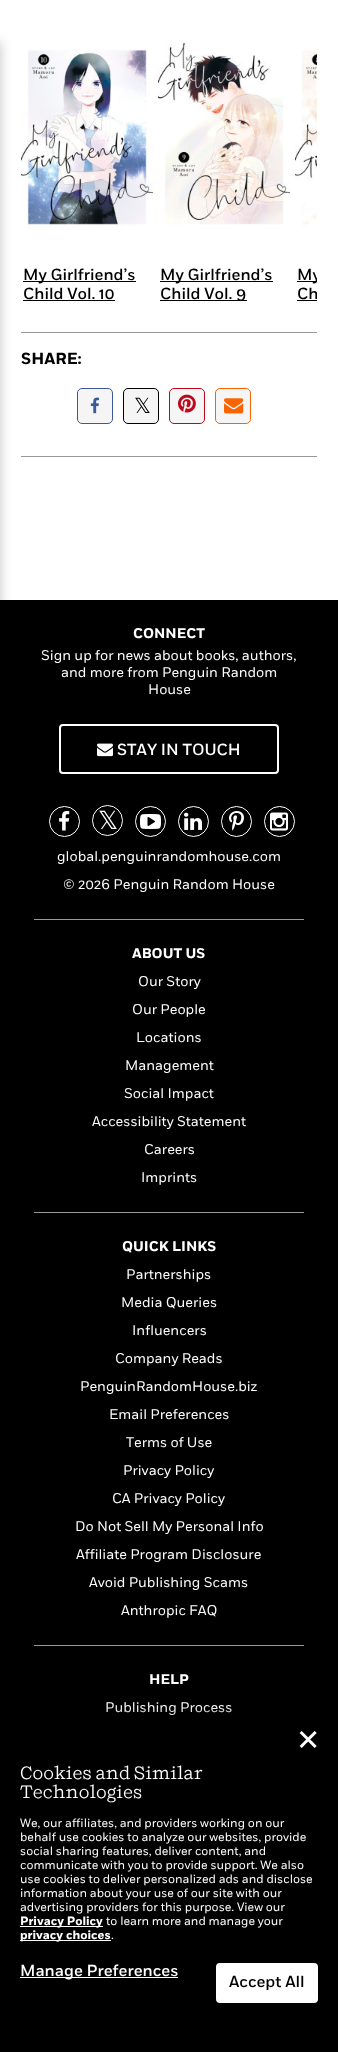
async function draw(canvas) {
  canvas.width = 338
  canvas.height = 2052
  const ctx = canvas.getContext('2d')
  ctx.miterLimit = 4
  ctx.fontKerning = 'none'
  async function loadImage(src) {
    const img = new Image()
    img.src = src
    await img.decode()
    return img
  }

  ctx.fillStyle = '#fff'
  ctx.fillRect(0, 0, 338, 2052)
  ctx.fillStyle = '#000'
  ctx.fillRect(0, 600, 338, 1115)
  ctx.fillStyle = '#0000003d'
  ctx.filter = 'blur(6px)'
  ctx.beginPath()
  ctx.rect(-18, 42, 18, 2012)
  ctx.fill()
  ctx.filter = 'none'
  ctx.drawImage(await loadImage('image0.png'), 21, 49, 132, 180)
  ctx.fillStyle = '#000'
  ctx.fillRect(23, 281, 113, 1)
  ctx.font = '500 16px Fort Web'
  ctx.fillText('My Girlfriend’s', 23, 280)
  ctx.fillText('Child Vol. 10', 23, 299)
  ctx.fillRect(23, 300, 92, 1)
  ctx.drawImage(await loadImage('image1.png'), 158, 43, 132, 182)
  ctx.fillRect(160, 281, 113, 1)
  ctx.fillText('My Girlfriend’s', 160, 280)
  ctx.fillRect(160, 300, 87, 1)
  ctx.fillText('Child Vol. 9', 160, 299)
  ctx.drawImage(await loadImage('image2.png'), 295, 50, 22, 179)
  ctx.fillRect(297, 281, 20, 1)
  ctx.save()
  ctx.beginPath()
  ctx.rect(21, 12, 296, 300)
  ctx.clip()
  ctx.fillText('My', 297, 280)
  ctx.fillText('Ch', 297, 299)
  ctx.restore()
  ctx.fillRect(297, 300, 20, 1)
  ctx.fillStyle = '#979797'
  ctx.fillRect(21, 332, 296, 1)
  ctx.font = 'bold 16px Fort Web'
  ctx.fillStyle = '#000'
  ctx.fillText('SHARE:', 21, 364)
  ctx.fillStyle = '#f5f5f5'
  ctx.beginPath()
  ctx.roundRect(77.5, 388.5, 35, 35, 4.5)
  ctx.fill()
  ctx.strokeStyle = '#3b5998'
  ctx.stroke()
  ctx.drawImage(await loadImage('image3.png'), 90, 397, 9, 17)
  ctx.beginPath()
  ctx.roundRect(123.5, 388.5, 35, 35, 4.5)
  ctx.fill()
  ctx.strokeStyle = '#000'
  ctx.stroke()
  ctx.font = '21px DejaVu Sans'
  ctx.fillStyle = '#000'
  ctx.fillText('𝕏', 134, 413)
  ctx.fillStyle = '#f5f5f5'
  ctx.beginPath()
  ctx.roundRect(169.5, 388.5, 35, 35, 4.5)
  ctx.fill()
  ctx.strokeStyle = '#bd081c'
  ctx.stroke()
  ctx.drawImage(await loadImage('image4.png'), 178, 394, 18, 19)
  ctx.beginPath()
  ctx.roundRect(215.5, 388.5, 35, 35, 4.5)
  ctx.fill()
  ctx.strokeStyle = '#fa6400'
  ctx.stroke()
  ctx.drawImage(await loadImage('image5.png'), 224, 398, 20, 16)
  ctx.fillStyle = '#979797'
  ctx.fillRect(21, 456, 296, 1)
  ctx.font = 'bold 14px Fort Web'
  ctx.fillStyle = '#fff'
  ctx.fillText('CONNECT', 133, 638)
  ctx.font = '14px Fort Web'
  ctx.fillText('Sign up for news about books, authors,', 41, 660)
  ctx.fillText('and more from Penguin Random', 61, 677)
  ctx.fillText('House', 148, 694)
  ctx.beginPath()
  ctx.roundRect(60, 725, 218, 48, 3)
  ctx.strokeStyle = '#fff'
  ctx.lineWidth = 2
  ctx.stroke()
  ctx.drawImage(await loadImage('image6.png'), 97, 743, 16, 14)
  ctx.font = '500 16px Fort Web'
  ctx.fillText('STAY IN TOUCH', 117, 755)
  ctx.beginPath()
  ctx.arc(64.5, 821.5, 15, 0, 2 * Math.PI)
  ctx.lineWidth = 1
  ctx.stroke()
  ctx.drawImage(await loadImage('image7.png'), 59, 811, 11, 20)
  ctx.beginPath()
  ctx.arc(107.5, 820.5, 15, 0, 2 * Math.PI)
  ctx.stroke()
  ctx.font = '25px DejaVu Sans'
  ctx.fillText('𝕏', 98, 829)
  ctx.beginPath()
  ctx.arc(150.5, 821.5, 15, 0, 2 * Math.PI)
  ctx.stroke()
  ctx.drawImage(await loadImage('image8.png'), 140, 814, 21, 15)
  ctx.beginPath()
  ctx.arc(193.5, 821.5, 15, 0, 2 * Math.PI)
  ctx.stroke()
  ctx.drawImage(await loadImage('image9.png'), 184, 812, 18, 18)
  ctx.beginPath()
  ctx.arc(236.5, 821.5, 15, 0, 2 * Math.PI)
  ctx.stroke()
  ctx.drawImage(await loadImage('image10.png'), 229, 811, 15, 20)
  ctx.beginPath()
  ctx.arc(279.5, 821.5, 15, 0, 2 * Math.PI)
  ctx.stroke()
  ctx.drawImage(await loadImage('image11.png'), 270, 812, 18, 19)
  ctx.font = '14px Fort Web'
  ctx.fillText('global.penguinrandomhouse.com', 57, 861)
  ctx.fillText('© 2026 Penguin Random House', 63, 889)
  ctx.fillStyle = '#999'
  ctx.fillRect(34, 919, 270, 1)
  ctx.font = 'bold 14px Fort Web'
  ctx.fillStyle = '#fff'
  ctx.fillText('ABOUT US', 132, 958)
  ctx.font = '14px Fort Web'
  ctx.fillText('Our Story', 138, 986)
  ctx.fillText('Our People', 132, 1014)
  ctx.fillText('Locations', 136, 1042)
  ctx.fillText('Management', 125, 1070)
  ctx.fillText('Social Impact', 124, 1098)
  ctx.fillText('Accessibility Statement', 92, 1126)
  ctx.fillText('Careers', 144, 1154)
  ctx.fillText('Imprints', 141, 1182)
  ctx.fillStyle = '#999'
  ctx.fillRect(34, 1212, 270, 1)
  ctx.font = 'bold 14px Fort Web'
  ctx.fillStyle = '#fff'
  ctx.fillText('QUICK LINKS', 122, 1251)
  ctx.font = '14px Fort Web'
  ctx.fillText('Partnerships', 126, 1279)
  ctx.fillText('Media Queries', 121, 1307)
  ctx.fillText('Influencers', 132, 1335)
  ctx.fillText('Company Reads', 115, 1363)
  ctx.fillText('PenguinRandomHouse.biz', 80, 1391)
  ctx.fillText('Email Preferences', 109, 1419)
  ctx.fillText('Terms of Use', 126, 1447)
  ctx.fillText('Privacy Policy', 123, 1475)
  ctx.fillText('CA Privacy Policy', 112, 1503)
  ctx.fillText('Do Not Sell My Personal Info', 75, 1531)
  ctx.fillText('Affiliate Program Disclosure', 76, 1559)
  ctx.fillText('Avoid Publishing Scams', 89, 1587)
  ctx.fillText('Anthropic FAQ', 121, 1615)
  ctx.fillStyle = '#999'
  ctx.fillRect(34, 1645, 270, 1)
  ctx.font = 'bold 14px Fort Web'
  ctx.fillStyle = '#fff'
  ctx.fillText('HELP', 149, 1684)
  ctx.font = '14px Fort Web'
  ctx.fillText('Publishing Process', 105, 1712)
  ctx.fillStyle = '#00000029'
  ctx.filter = 'blur(3px)'
  ctx.beginPath()
  ctx.rect(0, 1709, 338, 337)
  ctx.fill()
  ctx.filter = 'none'
  ctx.fillStyle = '#000'
  ctx.fillRect(0, 1715, 338, 337)
  ctx.font = '29px DejaVu Sans'
  ctx.fillStyle = '#fff'
  ctx.fillText('✕', 296, 1750)
  ctx.font = '18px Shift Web'
  ctx.fillText('Cookies and Similar', 20, 1779)
  ctx.fillText('Technologies', 20, 1798)
  ctx.font = '12px Fort Web'
  ctx.fillText('We, our affiliates, and providers working on our', 20, 1827)
  ctx.fillText('behalf use cookies to analyze our websites, provide', 20, 1841)
  ctx.fillText('social sharing features, deliver content, and', 20, 1855)
  ctx.fillText('communicate with you to provide support. We also', 20, 1869)
  ctx.fillText('use cookies to deliver personalized ads and disclose', 20, 1883)
  ctx.fillText('information about your use of our site with our', 20, 1897)
  ctx.fillText('advertising providers for this purpose. View our', 20, 1911)
  ctx.fillRect(20, 1926, 83, 1)
  ctx.font = 'bold 12px Fort Web'
  ctx.fillText('Privacy Policy', 20, 1925)
  ctx.font = '12px Fort Web'
  ctx.fillText('to learn more and manage your', 106, 1925)
  ctx.fillRect(20, 1940, 91, 1)
  ctx.font = 'bold 12px Fort Web'
  ctx.fillText('privacy choices', 20, 1939)
  ctx.font = '12px Fort Web'
  ctx.fillText('.', 111, 1939)
  ctx.fillRect(20, 1977, 158, 1)
  ctx.font = '500 16px Fort Web'
  ctx.fillText('Manage Preferences', 20, 1976)
  ctx.beginPath()
  ctx.roundRect(217, 1964, 100, 38, 3)
  ctx.fill()
  ctx.lineWidth = 2
  ctx.stroke()
  ctx.fillStyle = '#000'
  ctx.fillText('Accept All', 229, 1987)
}

draw(document.querySelector('canvas'))
